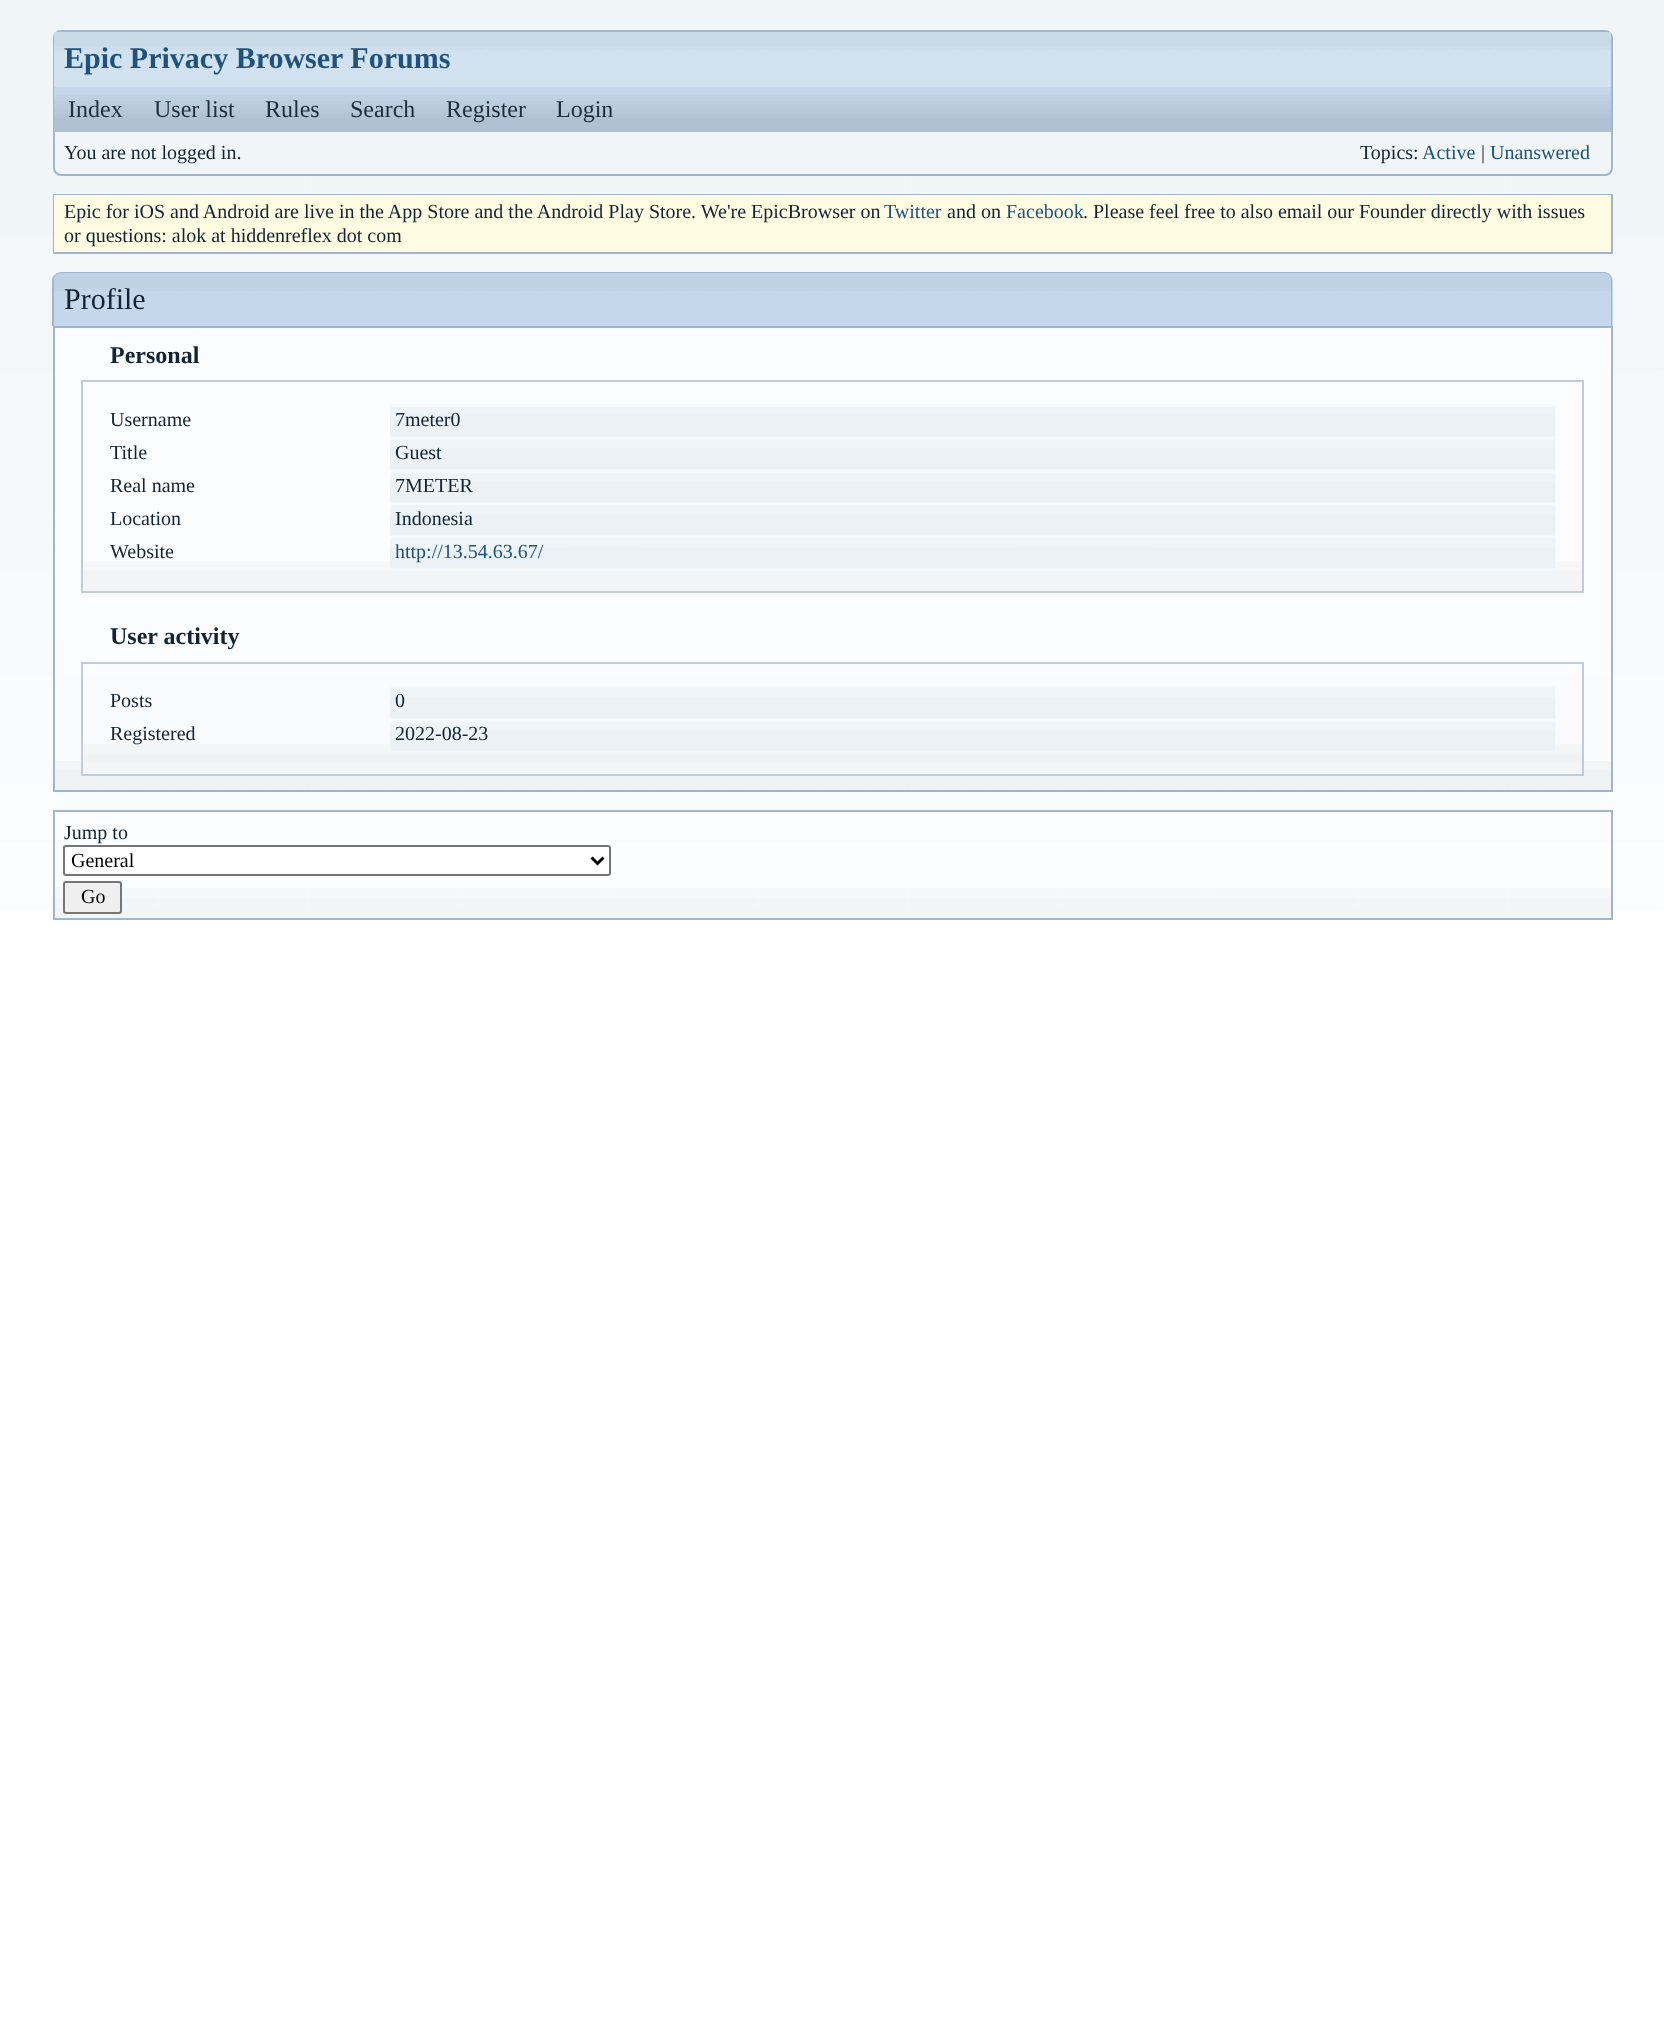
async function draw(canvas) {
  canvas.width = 1664
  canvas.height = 2035
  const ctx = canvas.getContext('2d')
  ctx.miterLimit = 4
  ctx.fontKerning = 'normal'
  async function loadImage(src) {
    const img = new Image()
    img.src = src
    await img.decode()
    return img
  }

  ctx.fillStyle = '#fff'
  ctx.fillRect(0, 0, 1664, 2035)
  ctx.drawImage(await loadImage('image0.png'), 0, 0, 1664, 909)
  ctx.beginPath()
  ctx.roundRect(54, 31, 1558, 144, 7)
  ctx.strokeStyle = '#a2b5cc'
  ctx.lineWidth = 2
  ctx.stroke()
  ctx.fillStyle = '#d1e1ef'
  ctx.fillRect(54, 32, 1557, 55)
  ctx.drawImage(await loadImage('image1.png'), 54, 32, 1557, 18)
  ctx.font = 'bold 30px Liberation Serif'
  ctx.fillStyle = '#1f537b'
  ctx.fillText('Epic Privacy Browser Forums', 64, 68)
  ctx.fillStyle = '#c5d8eb'
  ctx.fillRect(54, 87, 1557, 45)
  ctx.drawImage(await loadImage('image2.png'), 54, 95, 1557, 37)
  ctx.font = '24px Liberation Serif'
  ctx.fillStyle = '#1f2e3d'
  ctx.fillText('Index', 68, 117)
  ctx.fillText('User list', 154, 117)
  ctx.fillText('Rules', 265, 117)
  ctx.fillText('Search', 350, 117)
  ctx.fillText('Register', 446, 117)
  ctx.fillText('Login', 556, 117)
  ctx.font = '20px Liberation Serif'
  ctx.fillStyle = '#122434'
  ctx.fillText('You are not logged in.', 64, 159)
  ctx.fillText('Topics:', 1360, 159)
  ctx.fillStyle = '#1f537b'
  ctx.fillText('Active', 1422, 159)
  ctx.fillStyle = '#122434'
  ctx.fillText('|', 1481, 159)
  ctx.fillStyle = '#1f537b'
  ctx.fillText('Unanswered', 1490, 159)
  ctx.drawImage(await loadImage('image3.png'), 52, 232, 1, 20)
  ctx.strokeRect(54, 195, 1558, 58)
  ctx.fillStyle = '#fdfce3'
  ctx.fillRect(54, 195, 1557, 57)
  ctx.fillStyle = '#122434'
  ctx.fillText('Epic for iOS and Android are live in the App Store and the Android Play Store. We\'re EpicBrowser on', 64, 218)
  ctx.fillStyle = '#1f537b'
  ctx.fillText('Twitter', 884, 218)
  ctx.fillStyle = '#122434'
  ctx.fillText('and on', 947, 218)
  ctx.fillStyle = '#1f537b'
  ctx.fillText('Facebook', 1006, 218)
  ctx.fillStyle = '#122434'
  ctx.fillText('. Please feel free to also email our Founder directly with issues', 1083, 218)
  ctx.fillText('or questions: alok at hiddenreflex dot com', 64, 242)
  ctx.fillStyle = '#c5d8eb'
  ctx.beginPath()
  ctx.roundRect(53, 272, 1560, 54, [9, 9, 0, 0])
  ctx.fill()
  ctx.drawImage(await loadImage('image4.png'), 54, 273, 1558, 18)
  ctx.fillStyle = '#a2b5cc'
  ctx.beginPath()
  ctx.moveTo(62, 272)
  ctx.lineTo(1604, 272)
  ctx.bezierCurveTo(1608, 272, 1612, 276, 1612, 280)
  ctx.lineTo(1612, 326)
  ctx.lineTo(52, 326)
  ctx.lineTo(52, 280)
  ctx.bezierCurveTo(52, 276, 57, 272, 62, 272)
  ctx.closePath()
  ctx.moveTo(62, 273)
  ctx.lineTo(1604, 273)
  ctx.bezierCurveTo(1608, 273, 1611, 276, 1611, 280)
  ctx.lineTo(1611, 326)
  ctx.lineTo(54, 326)
  ctx.lineTo(54, 280)
  ctx.bezierCurveTo(54, 276, 57, 273, 62, 273)
  ctx.closePath()
  ctx.fill('evenodd')
  ctx.font = '30px Liberation Serif'
  ctx.fillStyle = '#122434'
  ctx.fillText('Profile', 64, 309)
  ctx.fillStyle = '#fbfcfd'
  ctx.fillRect(55, 328, 1556, 349)
  ctx.drawImage(await loadImage('image5.png'), 52, 761, 1559, 29)
  ctx.strokeRect(54, 327, 1558, 464)
  ctx.font = 'bold 24px Liberation Serif'
  ctx.fillStyle = '#122434'
  ctx.fillText('Personal', 110, 363)
  ctx.drawImage(await loadImage('image6.png'), 83, 561, 1499, 30)
  ctx.strokeStyle = '#c0ccd8'
  ctx.strokeRect(82, 381, 1501, 211)
  ctx.font = '20px Liberation Serif'
  ctx.fillText('Username', 110, 426)
  ctx.fillStyle = '#f4f9fd'
  ctx.fillRect(390, 404, 1166, 165)
  ctx.drawImage(await loadImage('image7.png'), 390, 407, 1165, 30)
  ctx.fillStyle = '#122434'
  ctx.fillText('7meter0', 395, 426)
  ctx.fillText('Title', 110, 459)
  ctx.drawImage(await loadImage('image8.png'), 390, 440, 1165, 30)
  ctx.fillText('Guest', 395, 459)
  ctx.fillText('Real name', 110, 492)
  ctx.drawImage(await loadImage('image8.png'), 390, 473, 1165, 30)
  ctx.fillText('7METER', 395, 492)
  ctx.fillText('Location', 110, 525)
  ctx.drawImage(await loadImage('image9.png'), 390, 505, 1165, 31)
  ctx.fillText('Indonesia', 395, 525)
  ctx.fillText('Website', 110, 558)
  ctx.drawImage(await loadImage('image9.png'), 390, 538, 1165, 31)
  ctx.fillStyle = '#1f537b'
  ctx.fillText('http://13.54.63.67/', 395, 558)
  ctx.font = 'bold 24px Liberation Serif'
  ctx.fillStyle = '#122434'
  ctx.fillText('User activity', 110, 644)
  ctx.fillStyle = '#fbfcfd'
  ctx.fillRect(83, 761, 1499, 13)
  ctx.drawImage(await loadImage('image10.png'), 83, 744, 1499, 30)
  ctx.strokeRect(82, 663, 1501, 112)
  ctx.font = '20px Liberation Serif'
  ctx.fillStyle = '#122434'
  ctx.fillText('Posts', 110, 707)
  ctx.fillStyle = '#f4f9fd'
  ctx.fillRect(390, 686, 1166, 66)
  ctx.drawImage(await loadImage('image11.png'), 390, 688, 1165, 31)
  ctx.fillStyle = '#122434'
  ctx.fillText('0', 395, 707)
  ctx.fillText('Registered', 110, 740)
  ctx.drawImage(await loadImage('image7.png'), 390, 722, 1165, 30)
  ctx.fillText('2022-08-23', 395, 740)
  ctx.fillStyle = '#fbfcfd'
  ctx.fillRect(55, 909, 1556, 9)
  ctx.drawImage(await loadImage('image12.png'), 52, 888, 1559, 30)
  ctx.strokeStyle = '#a2b5cc'
  ctx.strokeRect(54, 811, 1558, 108)
  ctx.fillStyle = '#122434'
  ctx.fillText('Jump to', 64, 839)
  ctx.fillStyle = '#fff'
  ctx.beginPath()
  ctx.roundRect(64, 846, 546, 29, 2)
  ctx.fill()
  ctx.strokeStyle = '#767676'
  ctx.stroke()
  ctx.beginPath()
  ctx.moveTo(591.5, 857.5)
  ctx.lineTo(597.5, 863.5)
  ctx.lineTo(603.5, 857.5)
  ctx.strokeStyle = '#000'
  ctx.lineWidth = 3
  ctx.stroke()
  ctx.fillStyle = '#000'
  ctx.fillText('General', 71, 867)
  ctx.fillStyle = '#efefef'
  ctx.beginPath()
  ctx.roundRect(64, 882, 57, 31, 2)
  ctx.fill()
  ctx.strokeStyle = '#767676'
  ctx.lineWidth = 2
  ctx.stroke()
  ctx.fillStyle = '#000'
  ctx.fillText('Go', 81, 903)
}

draw(document.querySelector('canvas'))
